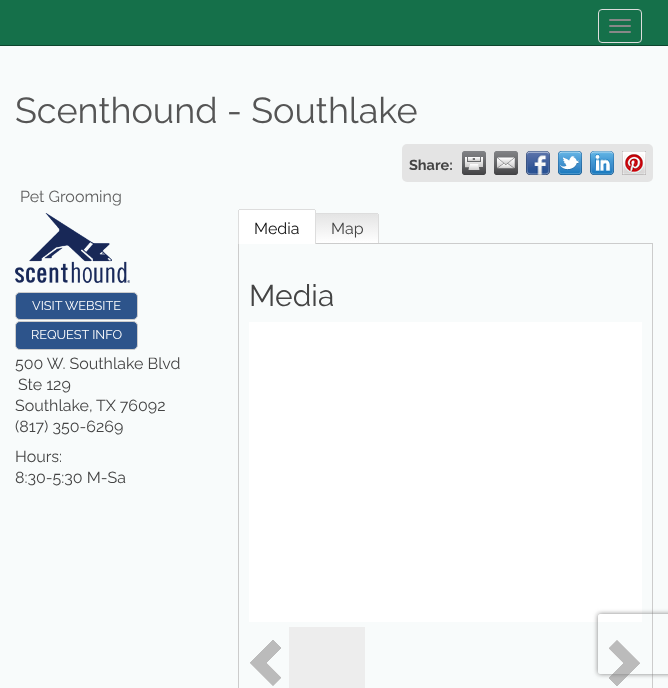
async function draw(canvas) {
  canvas.width = 668
  canvas.height = 688
  const ctx = canvas.getContext('2d')
  ctx.miterLimit = 4
  ctx.fontKerning = 'normal'
  async function loadImage(src) {
    const img = new Image()
    img.src = src
    await img.decode()
    return img
  }
  let gradient

  ctx.fillStyle = '#f8fbfb'
  ctx.fillRect(0, 0, 668, 688)
  ctx.fillStyle = '#15704a'
  ctx.fillRect(0, 0, 668, 45)
  ctx.fillStyle = '#0d452e'
  ctx.fillRect(0, 45, 668, 1)
  ctx.beginPath()
  ctx.roundRect(598.5, 9.5, 43, 33, 3.5)
  ctx.strokeStyle = '#ddd'
  ctx.stroke()
  ctx.fillStyle = '#888'
  ctx.beginPath()
  ctx.roundRect(609, 19, 22, 2, 1)
  ctx.fill()
  ctx.beginPath()
  ctx.roundRect(609, 25, 22, 2, 1)
  ctx.fill()
  ctx.beginPath()
  ctx.roundRect(609, 31, 22, 2, 1)
  ctx.fill()
  ctx.font = '36px Raleway'
  ctx.fillStyle = '#555'
  ctx.fillText('Scenthound - Southlake', 15, 123)
  ctx.fillStyle = '#e4e4e4'
  ctx.beginPath()
  ctx.roundRect(402, 144, 251, 38, 5)
  ctx.fill()
  ctx.font = 'bold 14.5px Raleway'
  ctx.fillStyle = '#444'
  ctx.fillText('Share:', 409, 170)
  ctx.drawImage(await loadImage('image0.png'), 462, 151, 24, 24)
  ctx.drawImage(await loadImage('image1.png'), 494, 151, 24, 24)
  ctx.drawImage(await loadImage('image2.png'), 526, 151, 24, 24)
  ctx.drawImage(await loadImage('image3.png'), 558, 151, 24, 24)
  ctx.drawImage(await loadImage('image4.png'), 590, 151, 24, 24)
  ctx.drawImage(await loadImage('image5.png'), 622, 151, 24, 24)
  ctx.font = '16px Raleway'
  ctx.fillStyle = '#5e5e5e'
  ctx.fillText('Pet Grooming', 20, 202)
  ctx.strokeStyle = '#ccc'
  ctx.strokeRect(238.5, 243.5, 414, 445)
  ctx.fillStyle = '#fff'
  ctx.beginPath()
  ctx.roundRect(239, 210, 76, 34, [1, 1, 0, 0])
  ctx.fill()
  ctx.fillStyle = '#ddd'
  ctx.fillRect(239, 209, 76, 1)
  ctx.fillRect(315, 210, 1, 34)
  ctx.fillRect(238, 210, 1, 34)
  ctx.fillStyle = '#111'
  ctx.fillText('Media', 254, 234)
  gradient = ctx.createLinearGradient(347, 214, 347, 243)
  gradient.addColorStop(0, '#e4e4e4')
  gradient.addColorStop(1, '#fff')
  ctx.fillStyle = gradient
  ctx.beginPath()
  ctx.roundRect(316, 214, 62, 29, [0, 1, 0, 0])
  ctx.fill()
  ctx.fillStyle = '#ddd'
  ctx.fillRect(316, 213, 62, 1)
  ctx.fillRect(378, 214, 1, 29)
  ctx.fillStyle = '#444'
  ctx.fillText('Map', 331, 234)
  ctx.font = '30px Raleway'
  ctx.fillText('Media', 249, 306)
  ctx.fillStyle = '#fff'
  ctx.fillRect(249, 322, 393, 300)
  ctx.drawImage(await loadImage('image6.png'), 250, 640, 31, 46)
  ctx.fillStyle = '#ededed'
  ctx.fillRect(289, 627, 76, 61)
  ctx.drawImage(await loadImage('image7.png'), 609, 640, 31, 46)
  ctx.drawImage(await loadImage('image8.png'), 15, 213, 115, 70)
  ctx.fillStyle = '#2d548b'
  ctx.beginPath()
  ctx.roundRect(15.5, 292.5, 122, 27, 4.5)
  ctx.fill()
  ctx.stroke()
  ctx.font = '12.75px Raleway'
  ctx.fillStyle = '#fff'
  ctx.fillText('VISIT WEBSITE', 32, 310)
  ctx.fillStyle = '#2d548b'
  ctx.beginPath()
  ctx.roundRect(15.5, 321.5, 122, 28, 4.5)
  ctx.fill()
  ctx.stroke()
  ctx.fillStyle = '#fff'
  ctx.fillText('REQUEST INFO', 31, 339)
  ctx.font = '16px Raleway'
  ctx.fillStyle = '#444'
  ctx.fillText('500 W. Southlake Blvd', 15, 369)
  ctx.fillText('Ste 129', 18, 390)
  ctx.fillText('Southlake,', 15, 411)
  ctx.fillText('TX 76092', 96, 411)
  ctx.fillText('(817) 350-6269', 15, 432)
  ctx.fillText('Hours:', 15, 462)
  ctx.fillText('8:30-5:30 M-Sa', 15, 483)
  ctx.save()
  ctx.beginPath()
  ctx.moveTo(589, 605)
  ctx.lineTo(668, 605)
  ctx.lineTo(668, 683)
  ctx.lineTo(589, 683)
  ctx.closePath()
  ctx.moveTo(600, 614)
  ctx.lineTo(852, 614)
  ctx.bezierCurveTo(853, 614, 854, 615, 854, 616)
  ctx.lineTo(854, 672)
  ctx.bezierCurveTo(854, 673, 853, 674, 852, 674)
  ctx.lineTo(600, 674)
  ctx.bezierCurveTo(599, 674, 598, 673, 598, 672)
  ctx.lineTo(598, 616)
  ctx.bezierCurveTo(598, 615, 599, 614, 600, 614)
  ctx.closePath()
  ctx.clip('evenodd')
  ctx.fillStyle = '#808080'
  ctx.filter = 'blur(2.5px)'
  ctx.beginPath()
  ctx.roundRect(598, 614, 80, 60, 2)
  ctx.fill()
  ctx.filter = 'none'
  ctx.restore()
}

draw(document.querySelector('canvas'))
